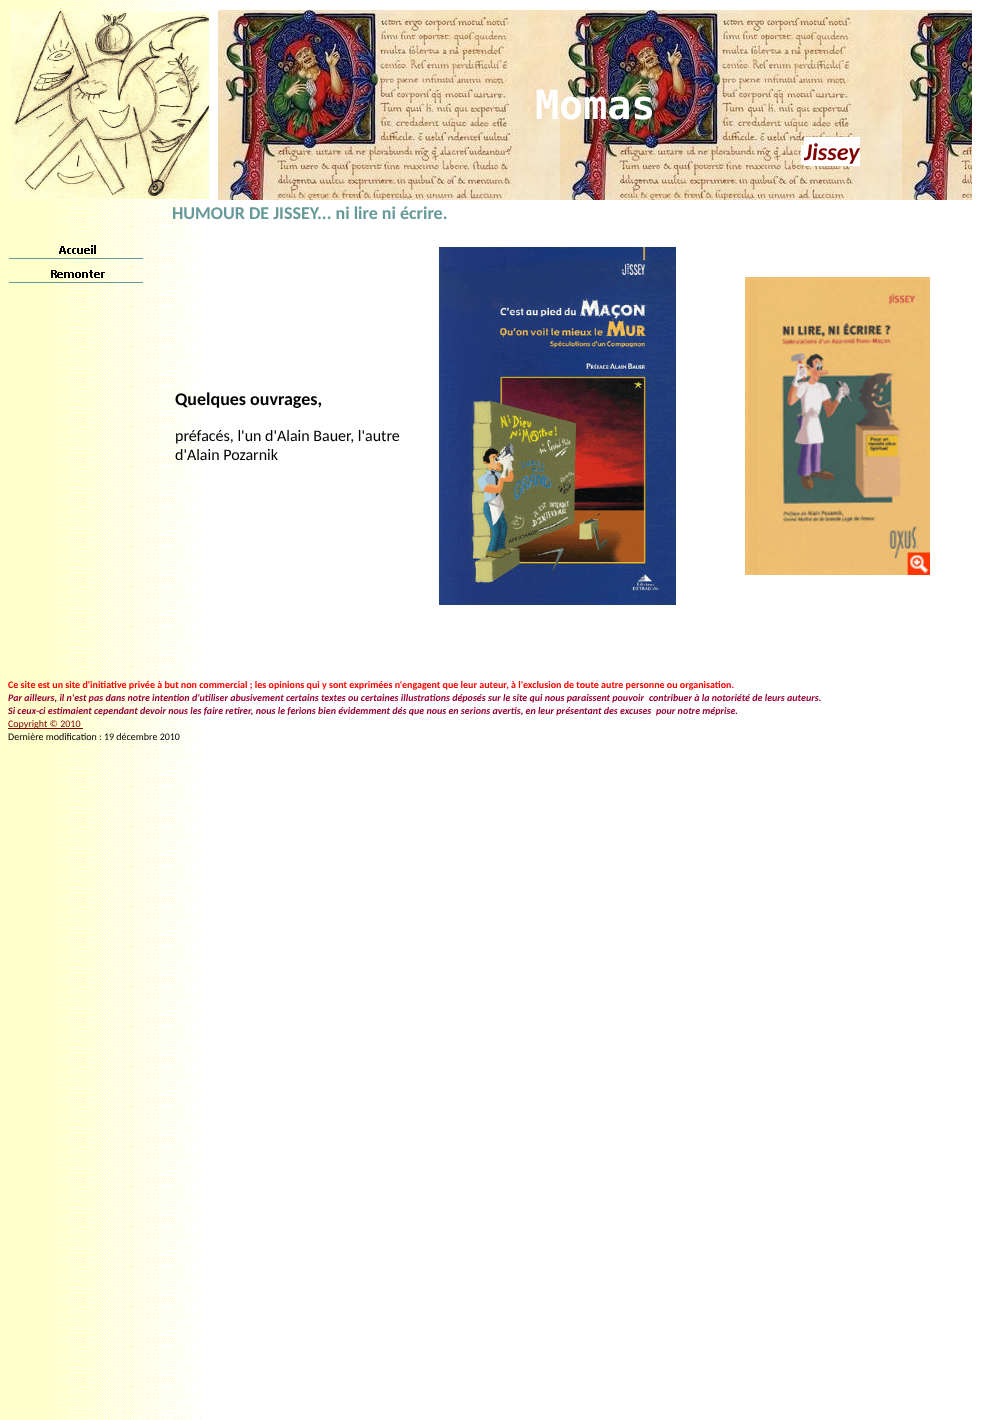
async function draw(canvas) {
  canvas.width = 982
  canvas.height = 1420
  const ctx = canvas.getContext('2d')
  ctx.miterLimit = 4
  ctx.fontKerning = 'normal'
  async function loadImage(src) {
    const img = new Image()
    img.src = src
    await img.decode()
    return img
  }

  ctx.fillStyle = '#fff'
  ctx.fillRect(0, 0, 982, 1420)
  ctx.drawImage(await loadImage('image0.png'), 0, 0, 201, 1420)
  ctx.drawImage(await loadImage('image1.png'), 11, 11, 198, 188)
  ctx.drawImage(await loadImage('image2.png'), 218, 10, 754, 190)
  ctx.font = 'bold 40px DejaVu Sans Mono'
  ctx.fillText('Momas', 535, 119)
  ctx.fillRect(804, 137, 56, 29)
  ctx.font = 'italic bold 24px Carlito'
  ctx.fillStyle = '#800000'
  ctx.fillText('Jissey', 804, 160)
  ctx.fillStyle = '#fff'
  ctx.fillRect(801, 145, 3, 19)
  ctx.drawImage(await loadImage('image3.png'), 9, 245, 134, 14)
  ctx.drawImage(await loadImage('image4.png'), 9, 270, 134, 13)
  ctx.font = 'bold 18px Carlito'
  ctx.fillStyle = '#699'
  ctx.fillText('HUMOUR DE JISSEY... ni lire ni écrire.', 172, 219)
  ctx.fillStyle = '#000'
  ctx.fillText('Quelques ouvrages,', 175, 405)
  ctx.font = '16px Carlito'
  ctx.fillText('préfacés, l\'un d\'Alain Bauer, l\'autre', 175, 441)
  ctx.fillText('d\'Alain Pozarnik', 175, 460)
  ctx.drawImage(await loadImage('image5.png'), 439, 247, 237, 358)
  ctx.drawImage(await loadImage('image6.png'), 745, 277, 185, 298)
  ctx.font = 'bold 10px Carlito'
  ctx.fillStyle = '#f00'
  ctx.fillText('Ce site est un site d\'initiative privée à but non commercial ; les opinions qui y sont exprimées n\'engagent que leur auteur, à l\'exclusion de toute autre personne ou organisation.', 8, 688)
  ctx.font = 'italic bold 10px Carlito'
  ctx.fillStyle = '#903'
  ctx.fillText('Par ailleurs, il n\'est pas dans notre intention d\'utiliser abusivement certains textes ou certaines illustrations déposés sur le site qui nous paraissent pouvoir', 8, 701)
  ctx.fillText('contribuer à la notoriété de leurs auteurs.', 649, 701)
  ctx.fillText('Si ceux-ci estimaient cependant devoir nous les faire retirer, nous le ferions bien évidemment dés que nous en serions avertis, en leur présentant des excuses', 8, 714)
  ctx.fillText('pour notre méprise.', 656, 714)
  ctx.fillStyle = '#800000'
  ctx.fillRect(8, 728, 75, 1)
  ctx.font = '10px Carlito'
  ctx.fillText('Copyright © 2010', 8, 727)
  ctx.fillStyle = '#000'
  ctx.fillText('Dernière modification : 19 décembre 2010', 8, 740)
}

draw(document.querySelector('canvas'))
